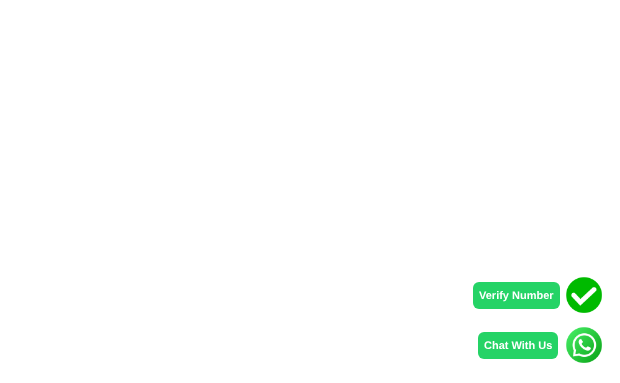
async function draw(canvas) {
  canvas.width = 620
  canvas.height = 383
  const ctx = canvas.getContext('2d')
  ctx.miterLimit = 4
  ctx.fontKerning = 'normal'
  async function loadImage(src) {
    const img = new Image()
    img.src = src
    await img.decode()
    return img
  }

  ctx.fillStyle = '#fff'
  ctx.fillRect(0, 0, 620, 383)
  ctx.fillStyle = '#25d366'
  ctx.beginPath()
  ctx.roundRect(473, 282, 87, 27, 6)
  ctx.fill()
  ctx.font = 'bold 11px Liberation Sans'
  ctx.fillStyle = '#fff'
  ctx.fillText('Verify Number', 479, 299)
  ctx.drawImage(await loadImage('image0.png'), 566, 277, 36, 36)
  ctx.fillStyle = '#25d366'
  ctx.beginPath()
  ctx.roundRect(478, 332, 80, 27, 6)
  ctx.fill()
  ctx.fillStyle = '#fff'
  ctx.fillText('Chat With Us', 484, 349)
  ctx.drawImage(await loadImage('image1.png'), 566, 327, 36, 36)
}

draw(document.querySelector('canvas'))
